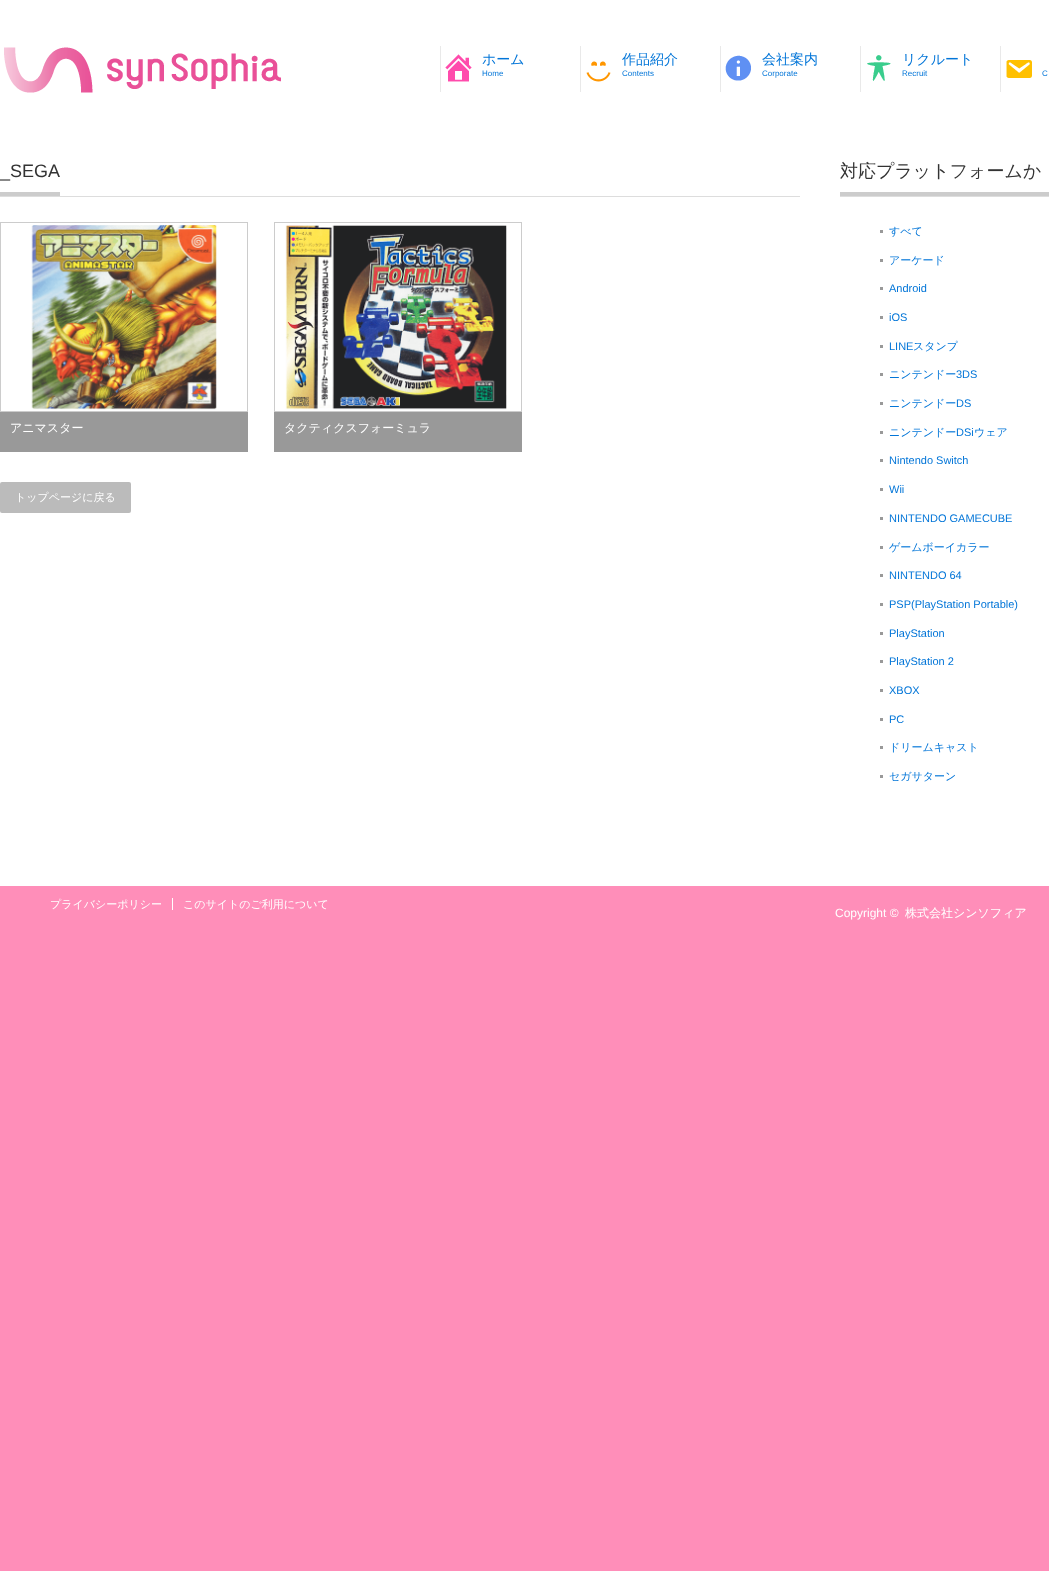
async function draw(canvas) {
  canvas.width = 1049
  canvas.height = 1571
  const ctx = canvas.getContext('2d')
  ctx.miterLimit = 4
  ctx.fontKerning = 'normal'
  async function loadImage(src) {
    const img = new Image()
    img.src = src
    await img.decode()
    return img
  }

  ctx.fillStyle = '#ff8eb9'
  ctx.fillRect(0, 0, 1049, 1571)
  ctx.fillStyle = '#fff'
  ctx.fillRect(0, 0, 1049, 886)
  ctx.drawImage(await loadImage('image0.png'), 4, 47, 277, 46)
  ctx.fillStyle = '#e9e9e9'
  ctx.fillRect(440, 46, 1, 46)
  ctx.drawImage(await loadImage('image1.png'), 445, 54, 27, 28)
  ctx.font = '500 14px WenQuanYi Zen Hei'
  ctx.fillStyle = '#0275d8'
  ctx.fillText('ホーム', 482, 64)
  ctx.font = '8px Liberation Sans'
  ctx.fillText('Home', 482, 76)
  ctx.fillStyle = '#e9e9e9'
  ctx.fillRect(580, 46, 1, 46)
  ctx.drawImage(await loadImage('image2.png'), 586, 61, 25, 21)
  ctx.font = '500 14px WenQuanYi Zen Hei'
  ctx.fillStyle = '#0275d8'
  ctx.fillText('作品紹介', 622, 64)
  ctx.font = '8px Liberation Sans'
  ctx.fillText('Contents', 622, 76)
  ctx.fillStyle = '#e9e9e9'
  ctx.fillRect(720, 46, 1, 46)
  ctx.drawImage(await loadImage('image3.png'), 725, 55, 26, 26)
  ctx.font = '500 14px WenQuanYi Zen Hei'
  ctx.fillStyle = '#0275d8'
  ctx.fillText('会社案内', 762, 64)
  ctx.font = '8px Liberation Sans'
  ctx.fillText('Corporate', 762, 76)
  ctx.fillStyle = '#e9e9e9'
  ctx.fillRect(860, 46, 1, 46)
  ctx.drawImage(await loadImage('image4.png'), 867, 55, 24, 26)
  ctx.font = '500 14px WenQuanYi Zen Hei'
  ctx.fillStyle = '#0275d8'
  ctx.fillText('リクルート', 902, 64)
  ctx.font = '8px Liberation Sans'
  ctx.fillText('Recruit', 902, 76)
  ctx.fillStyle = '#e9e9e9'
  ctx.fillRect(1000, 46, 1, 46)
  ctx.drawImage(await loadImage('image5.png'), 1006, 60, 26, 18)
  ctx.fillStyle = '#0275d8'
  ctx.fillText('C', 1042, 76)
  ctx.fillStyle = '#ddd'
  ctx.fillRect(0, 196, 800, 1)
  ctx.fillStyle = '#ccc'
  ctx.fillRect(0, 192, 60, 4)
  ctx.font = '18px Liberation Sans'
  ctx.fillStyle = '#333'
  ctx.fillText('_SEGA', 0, 177)
  ctx.strokeStyle = '#ccc'
  ctx.strokeRect(0.5, 222.5, 247, 189)
  ctx.drawImage(await loadImage('image6.png'), 31, 225, 186, 185)
  ctx.fillStyle = '#999'
  ctx.fillRect(0, 412, 248, 40)
  ctx.font = '500 12px WenQuanYi Zen Hei'
  ctx.fillStyle = '#fff'
  ctx.fillText('アニマスター', 10, 432)
  ctx.strokeRect(274.5, 222.5, 247, 189)
  ctx.drawImage(await loadImage('image7.png'), 285, 225, 222, 185)
  ctx.fillStyle = '#999'
  ctx.fillRect(274, 412, 248, 40)
  ctx.fillStyle = '#fff'
  ctx.fillText('タクティクスフォーミュラ', 284, 432)
  ctx.fillStyle = '#bbb'
  ctx.beginPath()
  ctx.roundRect(0, 482, 131, 31, 2)
  ctx.fill()
  ctx.font = '500 11px WenQuanYi Zen Hei'
  ctx.fillStyle = '#fff'
  ctx.fillText('トップページに戻る', 15, 501)
  ctx.fillStyle = '#ddd'
  ctx.fillRect(840, 196, 209, 1)
  ctx.fillStyle = '#ccc'
  ctx.fillRect(840, 192, 209, 4)
  ctx.font = '500 18px WenQuanYi Zen Hei'
  ctx.fillStyle = '#333'
  ctx.fillText('対応プラットフォームか', 840, 177)
  ctx.fillStyle = '#999'
  ctx.fillRect(880, 230, 3, 3)
  ctx.font = '500 11px WenQuanYi Zen Hei'
  ctx.fillStyle = '#0275d8'
  ctx.fillText('すべて', 889, 235)
  ctx.fillStyle = '#999'
  ctx.fillRect(880, 259, 3, 3)
  ctx.fillStyle = '#0275d8'
  ctx.fillText('アーケード', 889, 264)
  ctx.fillStyle = '#999'
  ctx.fillRect(880, 287, 3, 3)
  ctx.font = '11px Liberation Sans'
  ctx.fillStyle = '#0275d8'
  ctx.fillText('Android', 889, 292)
  ctx.fillStyle = '#999'
  ctx.fillRect(880, 316, 3, 3)
  ctx.fillStyle = '#0275d8'
  ctx.fillText('iOS', 889, 321)
  ctx.fillStyle = '#999'
  ctx.fillRect(880, 345, 3, 3)
  ctx.fillStyle = '#0275d8'
  ctx.fillText('LINE', 889, 350)
  ctx.font = '500 11px WenQuanYi Zen Hei'
  ctx.fillText('スタンプ', 913, 350)
  ctx.fillStyle = '#999'
  ctx.fillRect(880, 373, 3, 3)
  ctx.fillStyle = '#0275d8'
  ctx.fillText('ニンテンドー', 889, 378)
  ctx.font = '11px Liberation Sans'
  ctx.fillText('3DS', 956, 378)
  ctx.fillStyle = '#999'
  ctx.fillRect(880, 402, 3, 3)
  ctx.font = '500 11px WenQuanYi Zen Hei'
  ctx.fillStyle = '#0275d8'
  ctx.fillText('ニンテンドー', 889, 407)
  ctx.font = '11px Liberation Sans'
  ctx.fillText('DS', 956, 407)
  ctx.fillStyle = '#999'
  ctx.fillRect(880, 431, 3, 3)
  ctx.font = '500 11px WenQuanYi Zen Hei'
  ctx.fillStyle = '#0275d8'
  ctx.fillText('ニンテンドー', 889, 436)
  ctx.font = '11px Liberation Sans'
  ctx.fillText('DSi', 956, 436)
  ctx.font = '500 11px WenQuanYi Zen Hei'
  ctx.fillText('ウェア', 974, 436)
  ctx.fillStyle = '#999'
  ctx.fillRect(880, 459, 3, 3)
  ctx.font = '11px Liberation Sans'
  ctx.fillStyle = '#0275d8'
  ctx.fillText('Nintendo Switch', 889, 464)
  ctx.fillStyle = '#999'
  ctx.fillRect(880, 488, 3, 3)
  ctx.fillStyle = '#0275d8'
  ctx.fillText('Wii', 889, 493)
  ctx.fillStyle = '#999'
  ctx.fillRect(880, 517, 3, 3)
  ctx.fillStyle = '#0275d8'
  ctx.fillText('NINTENDO GAMECUBE', 889, 522)
  ctx.fillStyle = '#999'
  ctx.fillRect(880, 546, 3, 3)
  ctx.font = '500 11px WenQuanYi Zen Hei'
  ctx.fillStyle = '#0275d8'
  ctx.fillText('ゲームボーイカラー', 889, 551)
  ctx.fillStyle = '#999'
  ctx.fillRect(880, 574, 3, 3)
  ctx.font = '11px Liberation Sans'
  ctx.fillStyle = '#0275d8'
  ctx.fillText('NINTENDO 64', 889, 579)
  ctx.fillStyle = '#999'
  ctx.fillRect(880, 603, 3, 3)
  ctx.fillStyle = '#0275d8'
  ctx.fillText('PSP(PlayStation Portable)', 889, 608)
  ctx.fillStyle = '#999'
  ctx.fillRect(880, 632, 3, 3)
  ctx.fillStyle = '#0275d8'
  ctx.fillText('PlayStation', 889, 637)
  ctx.fillStyle = '#999'
  ctx.fillRect(880, 660, 3, 3)
  ctx.fillStyle = '#0275d8'
  ctx.fillText('PlayStation 2', 889, 665)
  ctx.fillStyle = '#999'
  ctx.fillRect(880, 689, 3, 3)
  ctx.fillStyle = '#0275d8'
  ctx.fillText('XBOX', 889, 694)
  ctx.fillStyle = '#999'
  ctx.fillRect(880, 718, 3, 3)
  ctx.fillStyle = '#0275d8'
  ctx.fillText('PC', 889, 723)
  ctx.fillStyle = '#999'
  ctx.fillRect(880, 746, 3, 3)
  ctx.font = '500 11px WenQuanYi Zen Hei'
  ctx.fillStyle = '#0275d8'
  ctx.fillText('ドリームキャスト', 889, 751)
  ctx.fillStyle = '#999'
  ctx.fillRect(880, 775, 3, 3)
  ctx.fillStyle = '#0275d8'
  ctx.fillText('セガサターン', 889, 780)
  ctx.fillStyle = '#fff'
  ctx.fillText('プライバシーポリシー', 50, 908)
  ctx.fillRect(172, 898, 1, 12)
  ctx.fillText('このサイトのご利用について', 183, 908)
  ctx.font = '12px Liberation Sans'
  ctx.fillText('Copyright ©', 835, 917)
  ctx.font = '500 12px WenQuanYi Zen Hei'
  ctx.fillText('株式会社シンソフィア', 905, 917)
}

draw(document.querySelector('canvas'))
